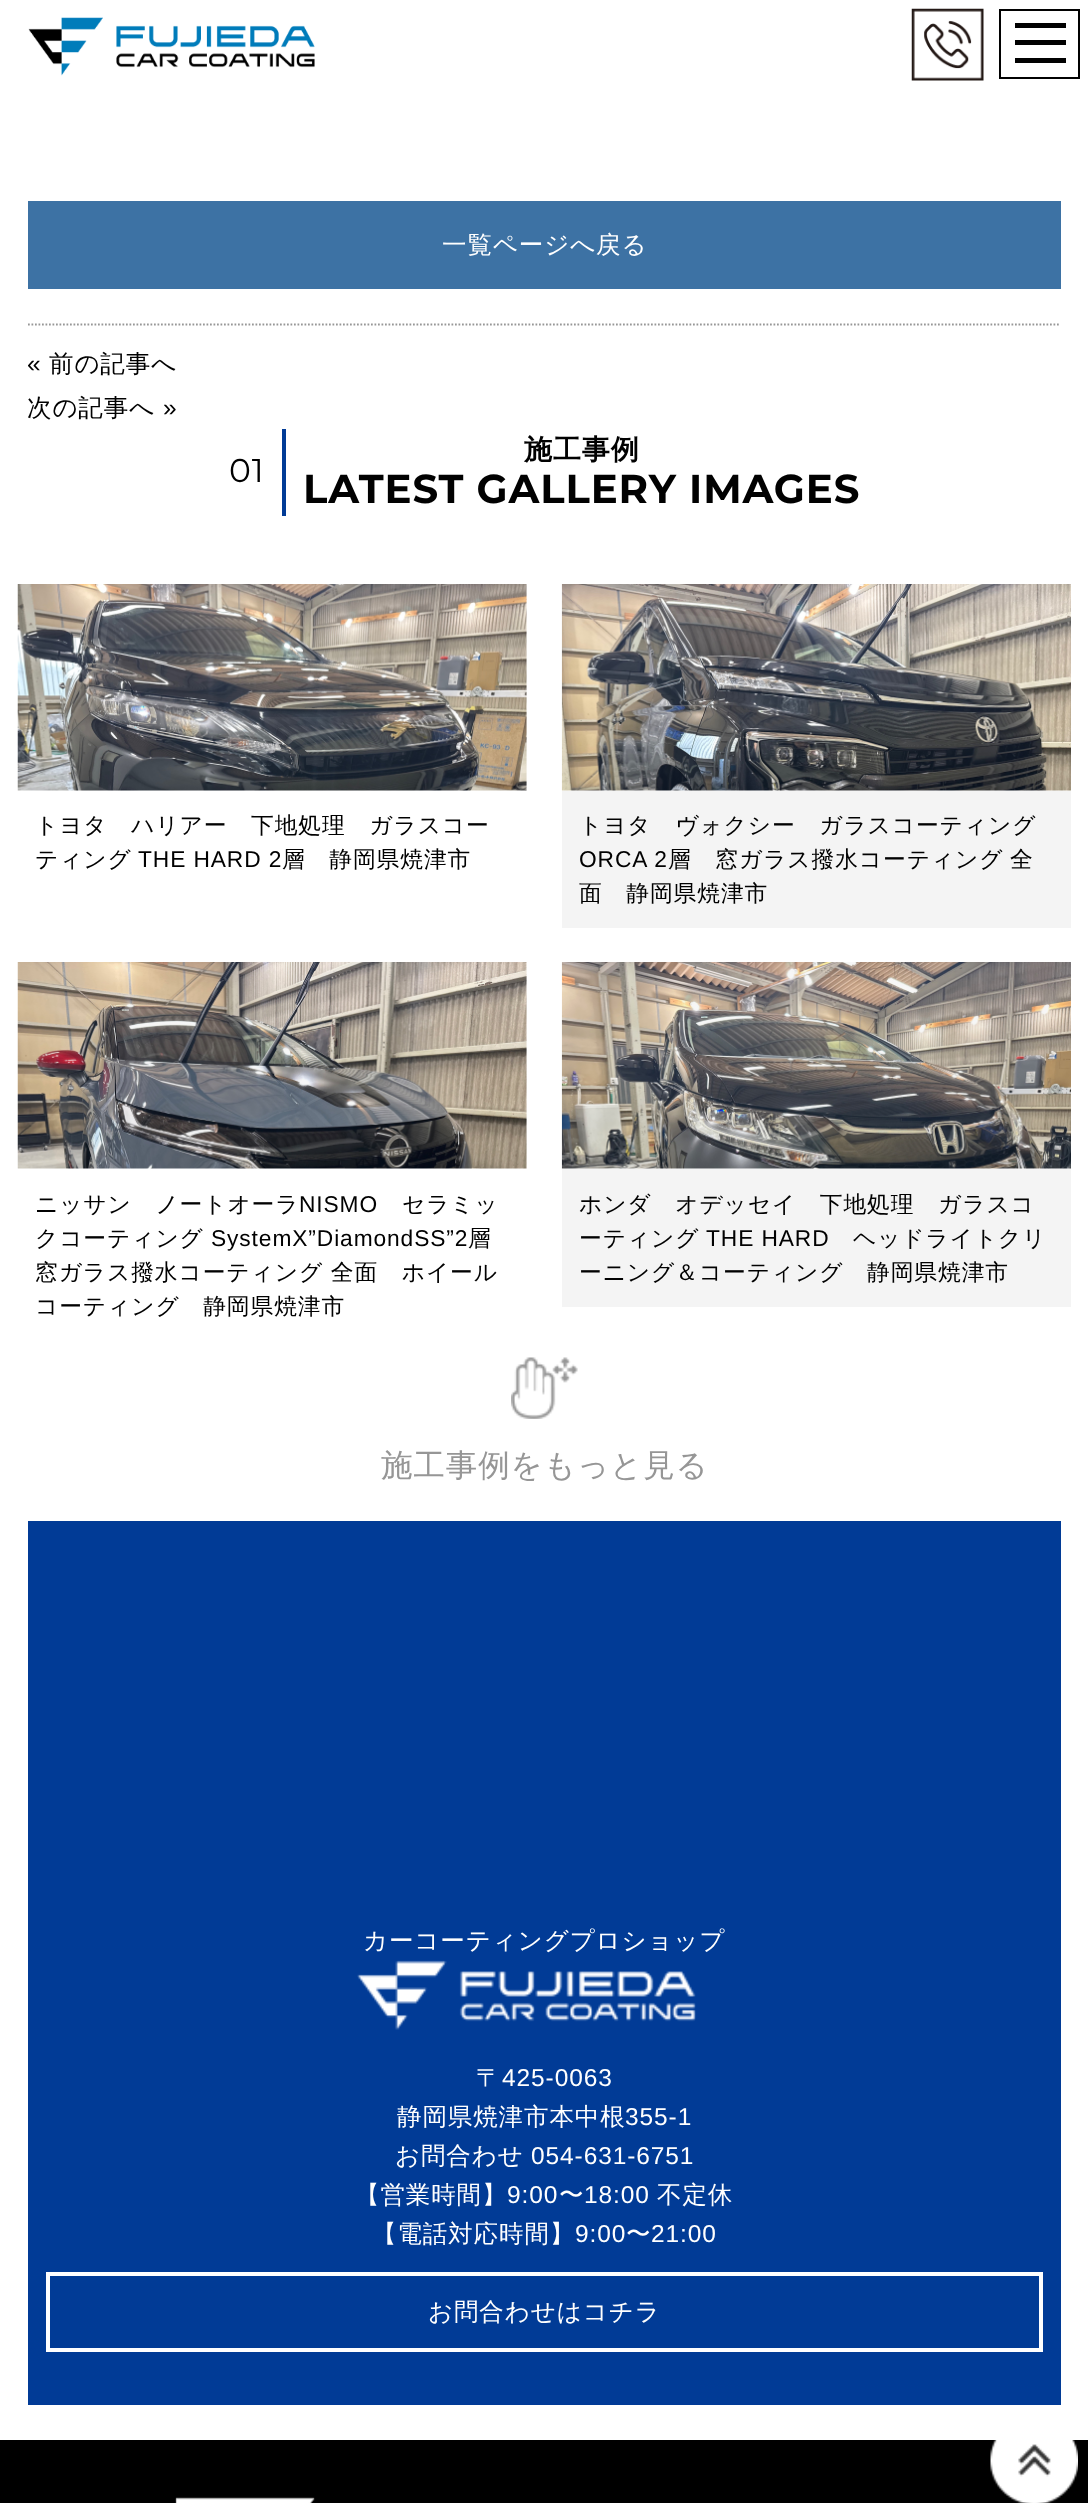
async function draw(canvas) {
  canvas.width = 1088
  canvas.height = 2503
  const ctx = canvas.getContext('2d')
  ctx.miterLimit = 4
  ctx.fontKerning = 'normal'
  async function loadImage(src) {
    const img = new Image()
    img.src = src
    await img.decode()
    return img
  }

  ctx.fillStyle = '#fff'
  ctx.fillRect(0, 0, 1088, 2503)
  ctx.drawImage(await loadImage('image0.png'), 28, 17, 287, 59)
  ctx.drawImage(await loadImage('image1.png'), 911, 8, 73, 73)
  ctx.strokeStyle = '#010101'
  ctx.lineWidth = 2
  ctx.strokeRect(1000, 10, 79, 68)
  ctx.fillStyle = '#010101'
  ctx.fillRect(1015, 40, 51, 5)
  ctx.fillRect(1015, 23, 51, 5)
  ctx.fillRect(1015, 58, 51, 5)
  ctx.strokeStyle = '#3d72a4'
  ctx.lineWidth = 4
  ctx.strokeRect(30, 203, 1029, 84)
  ctx.fillStyle = '#3d72a4'
  ctx.fillRect(32, 205, 1025, 80)
  ctx.letterSpacing = '0.9px'
  ctx.font = '500 24.5px WenQuanYi Zen Hei'
  ctx.fillStyle = '#fff'
  ctx.fillText('一覧ページへ戻る', 442, 253)
  ctx.beginPath()
  ctx.moveTo(28, 324.5)
  ctx.lineTo(1060.5, 324.5)
  ctx.strokeStyle = '#979797'
  ctx.lineWidth = 1.8
  ctx.setLineDash([1.75, 1.75])
  ctx.stroke()
  ctx.font = '24.5px Liberation Sans'
  ctx.fillStyle = '#010101'
  ctx.fillText('«', 27, 372)
  ctx.font = '500 24.5px WenQuanYi Zen Hei'
  ctx.fillText('前の記事へ', 49, 372)
  ctx.fillText('次の記事へ', 27, 416)
  ctx.font = '24.5px Liberation Sans'
  ctx.fillText('»', 163, 416)
  ctx.font = '33px Montserrat'
  ctx.fillText('01', 229, 482)
  ctx.fillStyle = '#013b96'
  ctx.fillRect(282, 429, 4, 87)
  ctx.font = 'bold 28px WenQuanYi Zen Hei'
  ctx.fillStyle = '#010101'
  ctx.fillText('施工事例', 524, 459)
  ctx.font = 'bold 40.25px Montserrat'
  ctx.fillText('LATEST GALLERY IMAGES', 303, 503)
  ctx.drawImage(await loadImage('image2.png'), 17, 584, 510, 207)
  ctx.font = '500 22.75px WenQuanYi Zen Hei'
  ctx.fillText('トヨタ　ハリアー　下地処理　ガラスコー', 35, 833)
  ctx.fillText('ティング', 35, 867)
  ctx.font = '22.75px Liberation Sans'
  ctx.fillText('THE HARD 2', 138, 867)
  ctx.font = '500 22.75px WenQuanYi Zen Hei'
  ctx.fillText('層　静岡県焼津市', 282, 867)
  ctx.drawImage(await loadImage('image3.png'), 561, 584, 510, 207)
  ctx.fillStyle = '#f4f4f4'
  ctx.fillRect(562, 791, 509, 137)
  ctx.fillStyle = '#010101'
  ctx.fillText('トヨタ　ヴォクシー　ガラスコーティング', 579, 833)
  ctx.font = '22.75px Liberation Sans'
  ctx.fillText('ORCA 2', 579, 867)
  ctx.font = '500 22.75px WenQuanYi Zen Hei'
  ctx.fillText('層　窓ガラス撥水コーティング', 668, 867)
  ctx.fillText('全', 1010, 867)
  ctx.fillText('面　静岡県焼津市', 579, 901)
  ctx.drawImage(await loadImage('image4.png'), 17, 962, 510, 207)
  ctx.fillText('ニッサン　ノートオーラ', 35, 1212)
  ctx.font = '22.75px Liberation Sans'
  ctx.fillText('NISMO', 299, 1212)
  ctx.font = '500 22.75px WenQuanYi Zen Hei'
  ctx.fillText('セラミッ', 402, 1212)
  ctx.fillText('クコーティング', 35, 1246)
  ctx.font = '22.75px Liberation Sans'
  ctx.fillText('SystemX”DiamondSS”2', 211, 1246)
  ctx.font = '500 22.75px WenQuanYi Zen Hei'
  ctx.fillText('層', 468, 1246)
  ctx.fillText('窓ガラス撥水コーティング 全面　ホイール', 35, 1280)
  ctx.fillText('コーティング　静岡県焼津市', 35, 1314)
  ctx.drawImage(await loadImage('image5.png'), 561, 962, 510, 207)
  ctx.fillStyle = '#f4f4f4'
  ctx.fillRect(562, 1169, 509, 138)
  ctx.fillStyle = '#010101'
  ctx.fillText('ホンダ　オデッセイ　下地処理　ガラスコ', 579, 1212)
  ctx.fillText('ーティング', 579, 1246)
  ctx.font = '22.75px Liberation Sans'
  ctx.fillText('THE HARD', 706, 1246)
  ctx.font = '500 22.75px WenQuanYi Zen Hei'
  ctx.fillText('ヘッドライトクリ', 853, 1246)
  ctx.fillText('ーニング＆コーティング　静岡県焼津市', 579, 1280)
  ctx.drawImage(await loadImage('image6.png'), 511, 1357, 67, 62)
  ctx.font = '500 31.5px WenQuanYi Zen Hei'
  ctx.fillStyle = '#969696'
  ctx.fillText('施工事例をもっと見る', 381, 1476)
  ctx.fillStyle = '#013b96'
  ctx.fillRect(28, 1521, 1033, 884)
  ctx.font = '500 24.5px WenQuanYi Zen Hei'
  ctx.fillStyle = '#fff'
  ctx.fillText('カーコーティングプロショップ', 363, 1949)
  ctx.drawImage(await loadImage('image7.png'), 357, 1960, 339, 70)
  ctx.fillText('〒', 476, 2086)
  ctx.font = '24.5px Liberation Sans'
  ctx.fillText('425-0063', 502, 2086)
  ctx.font = '500 24.5px WenQuanYi Zen Hei'
  ctx.fillText('静岡県焼津市本中根', 397, 2125)
  ctx.font = '24.5px Liberation Sans'
  ctx.fillText('355-1', 625, 2125)
  ctx.font = '500 24.5px WenQuanYi Zen Hei'
  ctx.fillText('お問合わせ', 395, 2164)
  ctx.font = '24.5px Liberation Sans'
  ctx.fillText('054-631-6751', 531, 2164)
  ctx.font = '500 24.5px WenQuanYi Zen Hei'
  ctx.fillText('【営業時間】', 355, 2203)
  ctx.font = '24.5px Liberation Sans'
  ctx.fillText('9:00', 507, 2203)
  ctx.font = '500 24.5px WenQuanYi Zen Hei'
  ctx.fillText('〜', 559, 2203)
  ctx.font = '24.5px Liberation Sans'
  ctx.fillText('18:00', 584, 2203)
  ctx.font = '500 24.5px WenQuanYi Zen Hei'
  ctx.fillText('不定休', 657, 2203)
  ctx.fillText('【電話対応時間】', 372, 2242)
  ctx.font = '24.5px Liberation Sans'
  ctx.fillText('9:00', 575, 2242)
  ctx.font = '500 24.5px WenQuanYi Zen Hei'
  ctx.fillText('〜', 626, 2242)
  ctx.font = '24.5px Liberation Sans'
  ctx.fillText('21:00', 651, 2242)
  ctx.strokeStyle = '#fff'
  ctx.lineWidth = 4
  ctx.setLineDash([])
  ctx.strokeRect(48, 2274, 993, 76)
  ctx.font = '500 24.5px WenQuanYi Zen Hei'
  ctx.fillText('お問合わせはコチラ', 428, 2320)
  ctx.fillStyle = '#000'
  ctx.fillRect(0, 2440, 1088, 63)
  ctx.drawImage(await loadImage('image8.png'), 175, 2497, 140, 6)
  ctx.drawImage(await loadImage('image9.png'), 990, 2440, 88, 63)
}

draw(document.querySelector('canvas'))
